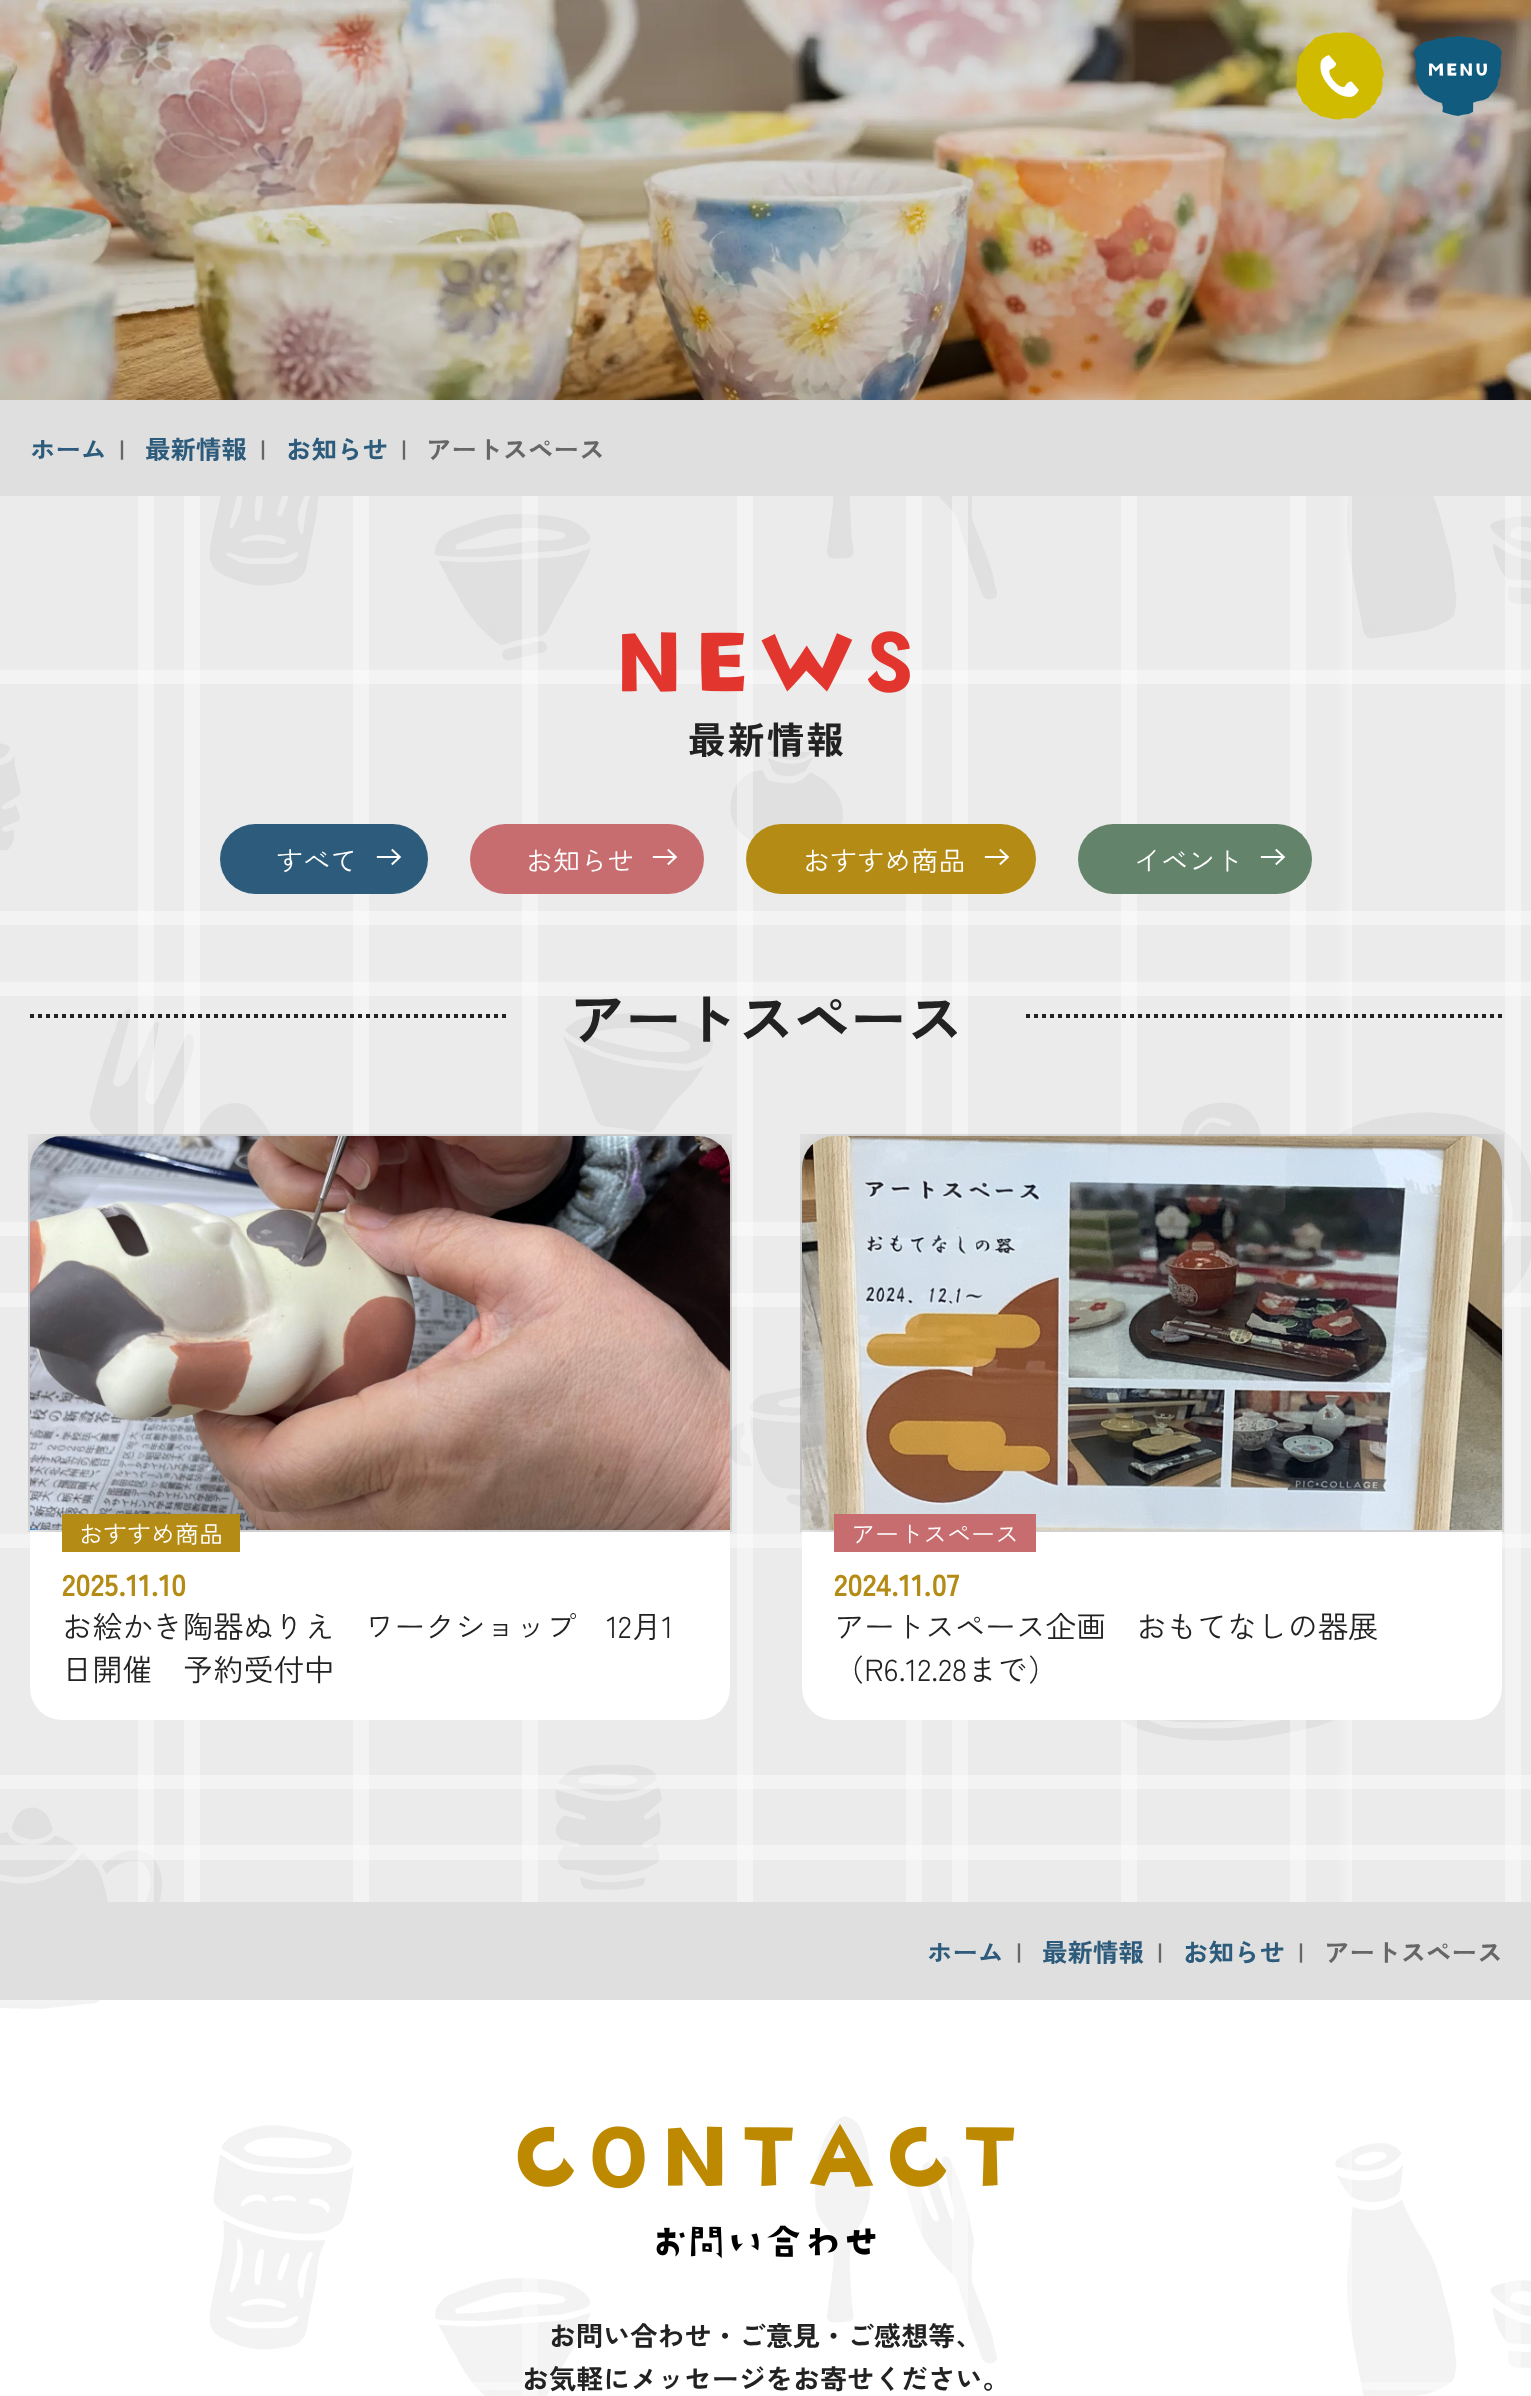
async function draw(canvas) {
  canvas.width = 1531
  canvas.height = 2396
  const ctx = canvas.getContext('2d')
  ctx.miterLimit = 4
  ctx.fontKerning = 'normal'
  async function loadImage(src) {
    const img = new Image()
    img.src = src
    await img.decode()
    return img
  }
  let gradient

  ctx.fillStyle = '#fff'
  ctx.fillRect(0, 0, 1531, 2396)
  ctx.drawImage(await loadImage('image0.png'), 0, 496, 1531, 1900)
  ctx.drawImage(await loadImage('image1.png'), 0, 0, 1531, 400)
  ctx.drawImage(await loadImage('image2.png'), 1296, 32, 88, 88)
  ctx.drawImage(await loadImage('image3.png'), 1414, 36, 88, 80)
  ctx.fillStyle = '#dfdfdf'
  ctx.fillRect(0, 400, 1531, 96)
  ctx.font = 'bold 25.5px Zen Kaku Gothic New'
  ctx.fillStyle = '#2d5b7b'
  ctx.fillText('ホーム', 30, 459)
  ctx.fillStyle = '#666'
  ctx.fillText('|', 119, 459)
  ctx.fillStyle = '#2d5b7b'
  ctx.fillText('最新情報', 145, 459)
  ctx.fillStyle = '#666'
  ctx.fillText('|', 260, 459)
  ctx.fillStyle = '#2d5b7b'
  ctx.fillText('お知らせ', 286, 459)
  ctx.fillStyle = '#666'
  ctx.fillText('|', 401, 459)
  ctx.fillText('アートスペース', 426, 459)
  ctx.fillStyle = '#00000014'
  ctx.fillRect(0, 496, 1531, 1406)
  gradient = ctx.createLinearGradient(0, 1199, 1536, 1199)
  gradient.addColorStop(0, '#ffffff66')
  gradient.addColorStop(0, '#ffffff66')
  gradient.addColorStop(0, '#ffffff00')
  gradient.addColorStop(0.02, '#ffffff00')
  gradient.addColorStop(0.02, '#ffffff66')
  gradient.addColorStop(0.02, '#ffffff66')
  gradient.addColorStop(0.02, '#ffffff00')
  gradient.addColorStop(0.03, '#ffffff00')
  gradient.addColorStop(0.03, '#ffffff66')
  gradient.addColorStop(0.03, '#ffffff66')
  gradient.addColorStop(0.03, '#ffffff00')
  gradient.addColorStop(0.05, '#ffffff00')
  gradient.addColorStop(0.05, '#ffffff66')
  gradient.addColorStop(0.05, '#ffffff66')
  gradient.addColorStop(0.05, '#ffffff00')
  gradient.addColorStop(0.06, '#ffffff00')
  gradient.addColorStop(0.06, '#ffffff66')
  gradient.addColorStop(0.06, '#ffffff66')
  gradient.addColorStop(0.06, '#ffffff00')
  gradient.addColorStop(0.08, '#ffffff00')
  gradient.addColorStop(0.08, '#ffffff66')
  gradient.addColorStop(0.08, '#ffffff66')
  gradient.addColorStop(0.08, '#ffffff00')
  gradient.addColorStop(0.09, '#ffffff00')
  gradient.addColorStop(0.09, '#ffffff66')
  gradient.addColorStop(0.1, '#ffffff66')
  gradient.addColorStop(0.1, '#ffffff00')
  gradient.addColorStop(0.11, '#ffffff00')
  gradient.addColorStop(0.11, '#ffffff66')
  gradient.addColorStop(0.11, '#ffffff66')
  gradient.addColorStop(0.11, '#ffffff00')
  gradient.addColorStop(0.12, '#ffffff00')
  gradient.addColorStop(0.12, '#ffffff66')
  gradient.addColorStop(0.13, '#ffffff66')
  gradient.addColorStop(0.13, '#ffffff00')
  gradient.addColorStop(0.14, '#ffffff00')
  gradient.addColorStop(0.14, '#ffffff66')
  gradient.addColorStop(0.14, '#ffffff66')
  gradient.addColorStop(0.14, '#ffffff00')
  gradient.addColorStop(0.16, '#ffffff00')
  gradient.addColorStop(0.16, '#ffffff66')
  gradient.addColorStop(0.16, '#ffffff66')
  gradient.addColorStop(0.16, '#ffffff00')
  gradient.addColorStop(0.17, '#ffffff00')
  gradient.addColorStop(0.17, '#ffffff66')
  gradient.addColorStop(0.17, '#ffffff66')
  gradient.addColorStop(0.17, '#ffffff00')
  gradient.addColorStop(0.19, '#ffffff00')
  gradient.addColorStop(0.19, '#ffffff66')
  gradient.addColorStop(0.19, '#ffffff66')
  gradient.addColorStop(0.19, '#ffffff00')
  gradient.addColorStop(0.2, '#ffffff00')
  gradient.addColorStop(0.2, '#ffffff66')
  gradient.addColorStop(0.2, '#ffffff66')
  gradient.addColorStop(0.2, '#ffffff00')
  gradient.addColorStop(0.22, '#ffffff00')
  gradient.addColorStop(0.22, '#ffffff66')
  gradient.addColorStop(0.22, '#ffffff66')
  gradient.addColorStop(0.22, '#ffffff00')
  gradient.addColorStop(0.23, '#ffffff00')
  gradient.addColorStop(0.23, '#ffffff66')
  gradient.addColorStop(0.24, '#ffffff66')
  gradient.addColorStop(0.24, '#ffffff00')
  gradient.addColorStop(0.25, '#ffffff00')
  gradient.addColorStop(0.25, '#ffffff66')
  gradient.addColorStop(0.25, '#ffffff66')
  gradient.addColorStop(0.25, '#ffffff00')
  gradient.addColorStop(0.27, '#ffffff00')
  gradient.addColorStop(0.27, '#ffffff66')
  gradient.addColorStop(0.27, '#ffffff66')
  gradient.addColorStop(0.27, '#ffffff00')
  gradient.addColorStop(0.28, '#ffffff00')
  gradient.addColorStop(0.28, '#ffffff66')
  gradient.addColorStop(0.28, '#ffffff66')
  gradient.addColorStop(0.28, '#ffffff00')
  gradient.addColorStop(0.3, '#ffffff00')
  gradient.addColorStop(0.3, '#ffffff66')
  gradient.addColorStop(0.3, '#ffffff66')
  gradient.addColorStop(0.3, '#ffffff00')
  gradient.addColorStop(0.31, '#ffffff00')
  gradient.addColorStop(0.31, '#ffffff66')
  gradient.addColorStop(0.31, '#ffffff66')
  gradient.addColorStop(0.31, '#ffffff00')
  gradient.addColorStop(0.33, '#ffffff00')
  gradient.addColorStop(0.33, '#ffffff66')
  gradient.addColorStop(0.33, '#ffffff66')
  gradient.addColorStop(0.33, '#ffffff00')
  gradient.addColorStop(0.34, '#ffffff00')
  gradient.addColorStop(0.34, '#ffffff66')
  gradient.addColorStop(0.35, '#ffffff66')
  gradient.addColorStop(0.35, '#ffffff00')
  gradient.addColorStop(0.36, '#ffffff00')
  gradient.addColorStop(0.36, '#ffffff66')
  gradient.addColorStop(0.36, '#ffffff66')
  gradient.addColorStop(0.36, '#ffffff00')
  gradient.addColorStop(0.38, '#ffffff00')
  gradient.addColorStop(0.38, '#ffffff66')
  gradient.addColorStop(0.38, '#ffffff66')
  gradient.addColorStop(0.38, '#ffffff00')
  gradient.addColorStop(0.39, '#ffffff00')
  gradient.addColorStop(0.39, '#ffffff66')
  gradient.addColorStop(0.39, '#ffffff66')
  gradient.addColorStop(0.39, '#ffffff00')
  gradient.addColorStop(0.41, '#ffffff00')
  gradient.addColorStop(0.41, '#ffffff66')
  gradient.addColorStop(0.41, '#ffffff66')
  gradient.addColorStop(0.41, '#ffffff00')
  gradient.addColorStop(0.42, '#ffffff00')
  gradient.addColorStop(0.42, '#ffffff66')
  gradient.addColorStop(0.42, '#ffffff66')
  gradient.addColorStop(0.42, '#ffffff00')
  gradient.addColorStop(0.44, '#ffffff00')
  gradient.addColorStop(0.44, '#ffffff66')
  gradient.addColorStop(0.44, '#ffffff66')
  gradient.addColorStop(0.44, '#ffffff00')
  gradient.addColorStop(0.45, '#ffffff00')
  gradient.addColorStop(0.45, '#ffffff66')
  gradient.addColorStop(0.45, '#ffffff66')
  gradient.addColorStop(0.45, '#ffffff00')
  gradient.addColorStop(0.47, '#ffffff00')
  gradient.addColorStop(0.47, '#ffffff66')
  gradient.addColorStop(0.47, '#ffffff66')
  gradient.addColorStop(0.47, '#ffffff00')
  gradient.addColorStop(0.48, '#ffffff00')
  gradient.addColorStop(0.48, '#ffffff66')
  gradient.addColorStop(0.49, '#ffffff66')
  gradient.addColorStop(0.49, '#ffffff00')
  gradient.addColorStop(0.5, '#ffffff00')
  gradient.addColorStop(0.5, '#ffffff66')
  gradient.addColorStop(0.5, '#ffffff66')
  gradient.addColorStop(0.5, '#ffffff00')
  gradient.addColorStop(0.52, '#ffffff00')
  gradient.addColorStop(0.52, '#ffffff66')
  gradient.addColorStop(0.52, '#ffffff66')
  gradient.addColorStop(0.52, '#ffffff00')
  gradient.addColorStop(0.53, '#ffffff00')
  gradient.addColorStop(0.53, '#ffffff66')
  gradient.addColorStop(0.53, '#ffffff66')
  gradient.addColorStop(0.53, '#ffffff00')
  gradient.addColorStop(0.55, '#ffffff00')
  gradient.addColorStop(0.55, '#ffffff66')
  gradient.addColorStop(0.55, '#ffffff66')
  gradient.addColorStop(0.55, '#ffffff00')
  gradient.addColorStop(0.56, '#ffffff00')
  gradient.addColorStop(0.56, '#ffffff66')
  gradient.addColorStop(0.56, '#ffffff66')
  gradient.addColorStop(0.56, '#ffffff00')
  gradient.addColorStop(0.58, '#ffffff00')
  gradient.addColorStop(0.58, '#ffffff66')
  gradient.addColorStop(0.58, '#ffffff66')
  gradient.addColorStop(0.58, '#ffffff00')
  gradient.addColorStop(0.59, '#ffffff00')
  gradient.addColorStop(0.59, '#ffffff66')
  gradient.addColorStop(0.6, '#ffffff66')
  gradient.addColorStop(0.6, '#ffffff00')
  gradient.addColorStop(0.61, '#ffffff00')
  gradient.addColorStop(0.61, '#ffffff66')
  gradient.addColorStop(0.61, '#ffffff66')
  gradient.addColorStop(0.61, '#ffffff00')
  gradient.addColorStop(0.62, '#ffffff00')
  gradient.addColorStop(0.62, '#ffffff66')
  gradient.addColorStop(0.63, '#ffffff66')
  gradient.addColorStop(0.63, '#ffffff00')
  gradient.addColorStop(0.64, '#ffffff00')
  gradient.addColorStop(0.64, '#ffffff66')
  gradient.addColorStop(0.64, '#ffffff66')
  gradient.addColorStop(0.64, '#ffffff00')
  gradient.addColorStop(0.66, '#ffffff00')
  gradient.addColorStop(0.66, '#ffffff66')
  gradient.addColorStop(0.66, '#ffffff66')
  gradient.addColorStop(0.66, '#ffffff00')
  gradient.addColorStop(0.67, '#ffffff00')
  gradient.addColorStop(0.67, '#ffffff66')
  gradient.addColorStop(0.67, '#ffffff66')
  gradient.addColorStop(0.67, '#ffffff00')
  gradient.addColorStop(0.69, '#ffffff00')
  gradient.addColorStop(0.69, '#ffffff66')
  gradient.addColorStop(0.69, '#ffffff66')
  gradient.addColorStop(0.69, '#ffffff00')
  gradient.addColorStop(0.7, '#ffffff00')
  gradient.addColorStop(0.7, '#ffffff66')
  gradient.addColorStop(0.7, '#ffffff66')
  gradient.addColorStop(0.7, '#ffffff00')
  gradient.addColorStop(0.72, '#ffffff00')
  gradient.addColorStop(0.72, '#ffffff66')
  gradient.addColorStop(0.72, '#ffffff66')
  gradient.addColorStop(0.72, '#ffffff00')
  gradient.addColorStop(0.73, '#ffffff00')
  gradient.addColorStop(0.73, '#ffffff66')
  gradient.addColorStop(0.74, '#ffffff66')
  gradient.addColorStop(0.74, '#ffffff00')
  gradient.addColorStop(0.75, '#ffffff00')
  gradient.addColorStop(0.75, '#ffffff66')
  gradient.addColorStop(0.75, '#ffffff66')
  gradient.addColorStop(0.75, '#ffffff00')
  gradient.addColorStop(0.77, '#ffffff00')
  gradient.addColorStop(0.77, '#ffffff66')
  gradient.addColorStop(0.77, '#ffffff66')
  gradient.addColorStop(0.77, '#ffffff00')
  gradient.addColorStop(0.78, '#ffffff00')
  gradient.addColorStop(0.78, '#ffffff66')
  gradient.addColorStop(0.78, '#ffffff66')
  gradient.addColorStop(0.78, '#ffffff00')
  gradient.addColorStop(0.8, '#ffffff00')
  gradient.addColorStop(0.8, '#ffffff66')
  gradient.addColorStop(0.8, '#ffffff66')
  gradient.addColorStop(0.8, '#ffffff00')
  gradient.addColorStop(0.81, '#ffffff00')
  gradient.addColorStop(0.81, '#ffffff66')
  gradient.addColorStop(0.81, '#ffffff66')
  gradient.addColorStop(0.81, '#ffffff00')
  gradient.addColorStop(0.83, '#ffffff00')
  gradient.addColorStop(0.83, '#ffffff66')
  gradient.addColorStop(0.83, '#ffffff66')
  gradient.addColorStop(0.83, '#ffffff00')
  gradient.addColorStop(0.84, '#ffffff00')
  gradient.addColorStop(0.84, '#ffffff66')
  gradient.addColorStop(0.85, '#ffffff66')
  gradient.addColorStop(0.85, '#ffffff00')
  gradient.addColorStop(0.86, '#ffffff00')
  gradient.addColorStop(0.86, '#ffffff66')
  gradient.addColorStop(0.86, '#ffffff66')
  gradient.addColorStop(0.86, '#ffffff00')
  gradient.addColorStop(0.87, '#ffffff00')
  gradient.addColorStop(0.88, '#ffffff66')
  gradient.addColorStop(0.88, '#ffffff66')
  gradient.addColorStop(0.88, '#ffffff00')
  gradient.addColorStop(0.89, '#ffffff00')
  gradient.addColorStop(0.89, '#ffffff66')
  gradient.addColorStop(0.89, '#ffffff66')
  gradient.addColorStop(0.89, '#ffffff00')
  gradient.addColorStop(0.91, '#ffffff00')
  gradient.addColorStop(0.91, '#ffffff66')
  gradient.addColorStop(0.91, '#ffffff66')
  gradient.addColorStop(0.91, '#ffffff00')
  gradient.addColorStop(0.92, '#ffffff00')
  gradient.addColorStop(0.92, '#ffffff66')
  gradient.addColorStop(0.92, '#ffffff66')
  gradient.addColorStop(0.92, '#ffffff00')
  gradient.addColorStop(0.94, '#ffffff00')
  gradient.addColorStop(0.94, '#ffffff66')
  gradient.addColorStop(0.94, '#ffffff66')
  gradient.addColorStop(0.94, '#ffffff00')
  gradient.addColorStop(0.95, '#ffffff00')
  gradient.addColorStop(0.95, '#ffffff66')
  gradient.addColorStop(0.95, '#ffffff66')
  gradient.addColorStop(0.95, '#ffffff00')
  gradient.addColorStop(0.97, '#ffffff00')
  gradient.addColorStop(0.97, '#ffffff66')
  gradient.addColorStop(0.97, '#ffffff66')
  gradient.addColorStop(0.97, '#ffffff00')
  gradient.addColorStop(0.98, '#ffffff00')
  gradient.addColorStop(0.98, '#ffffff66')
  gradient.addColorStop(0.99, '#ffffff66')
  gradient.addColorStop(0.99, '#ffffff00')
  gradient.addColorStop(1, '#00000000')
  ctx.fillStyle = gradient
  ctx.fillRect(138, 496, 1383, 1406)
  gradient = ctx.createLinearGradient(766, 1902, 766, 486)
  gradient.addColorStop(0, '#ffffff66')
  gradient.addColorStop(0, '#ffffff66')
  gradient.addColorStop(0, '#ffffff00')
  gradient.addColorStop(0.02, '#ffffff00')
  gradient.addColorStop(0.02, '#ffffff66')
  gradient.addColorStop(0.02, '#ffffff66')
  gradient.addColorStop(0.02, '#ffffff00')
  gradient.addColorStop(0.03, '#ffffff00')
  gradient.addColorStop(0.03, '#ffffff66')
  gradient.addColorStop(0.04, '#ffffff66')
  gradient.addColorStop(0.04, '#ffffff00')
  gradient.addColorStop(0.05, '#ffffff00')
  gradient.addColorStop(0.05, '#ffffff66')
  gradient.addColorStop(0.05, '#ffffff66')
  gradient.addColorStop(0.05, '#ffffff00')
  gradient.addColorStop(0.07, '#ffffff00')
  gradient.addColorStop(0.07, '#ffffff66')
  gradient.addColorStop(0.07, '#ffffff66')
  gradient.addColorStop(0.07, '#ffffff00')
  gradient.addColorStop(0.08, '#ffffff00')
  gradient.addColorStop(0.08, '#ffffff66')
  gradient.addColorStop(0.09, '#ffffff66')
  gradient.addColorStop(0.09, '#ffffff00')
  gradient.addColorStop(0.1, '#ffffff00')
  gradient.addColorStop(0.1, '#ffffff66')
  gradient.addColorStop(0.1, '#ffffff66')
  gradient.addColorStop(0.1, '#ffffff00')
  gradient.addColorStop(0.12, '#ffffff00')
  gradient.addColorStop(0.12, '#ffffff66')
  gradient.addColorStop(0.12, '#ffffff66')
  gradient.addColorStop(0.12, '#ffffff00')
  gradient.addColorStop(0.14, '#ffffff00')
  gradient.addColorStop(0.14, '#ffffff66')
  gradient.addColorStop(0.14, '#ffffff66')
  gradient.addColorStop(0.14, '#ffffff00')
  gradient.addColorStop(0.15, '#ffffff00')
  gradient.addColorStop(0.15, '#ffffff66')
  gradient.addColorStop(0.15, '#ffffff66')
  gradient.addColorStop(0.15, '#ffffff00')
  gradient.addColorStop(0.17, '#ffffff00')
  gradient.addColorStop(0.17, '#ffffff66')
  gradient.addColorStop(0.17, '#ffffff66')
  gradient.addColorStop(0.17, '#ffffff00')
  gradient.addColorStop(0.19, '#ffffff00')
  gradient.addColorStop(0.19, '#ffffff66')
  gradient.addColorStop(0.19, '#ffffff66')
  gradient.addColorStop(0.19, '#ffffff00')
  gradient.addColorStop(0.2, '#ffffff00')
  gradient.addColorStop(0.2, '#ffffff66')
  gradient.addColorStop(0.2, '#ffffff66')
  gradient.addColorStop(0.2, '#ffffff00')
  gradient.addColorStop(0.22, '#ffffff00')
  gradient.addColorStop(0.22, '#ffffff66')
  gradient.addColorStop(0.22, '#ffffff66')
  gradient.addColorStop(0.22, '#ffffff00')
  gradient.addColorStop(0.24, '#ffffff00')
  gradient.addColorStop(0.24, '#ffffff66')
  gradient.addColorStop(0.24, '#ffffff66')
  gradient.addColorStop(0.24, '#ffffff00')
  gradient.addColorStop(0.25, '#ffffff00')
  gradient.addColorStop(0.25, '#ffffff66')
  gradient.addColorStop(0.26, '#ffffff66')
  gradient.addColorStop(0.26, '#ffffff00')
  gradient.addColorStop(0.27, '#ffffff00')
  gradient.addColorStop(0.27, '#ffffff66')
  gradient.addColorStop(0.27, '#ffffff66')
  gradient.addColorStop(0.27, '#ffffff00')
  gradient.addColorStop(0.29, '#ffffff00')
  gradient.addColorStop(0.29, '#ffffff66')
  gradient.addColorStop(0.29, '#ffffff66')
  gradient.addColorStop(0.29, '#ffffff00')
  gradient.addColorStop(0.31, '#ffffff00')
  gradient.addColorStop(0.31, '#ffffff66')
  gradient.addColorStop(0.31, '#ffffff66')
  gradient.addColorStop(0.31, '#ffffff00')
  gradient.addColorStop(0.32, '#ffffff00')
  gradient.addColorStop(0.32, '#ffffff66')
  gradient.addColorStop(0.32, '#ffffff66')
  gradient.addColorStop(0.32, '#ffffff00')
  gradient.addColorStop(0.34, '#ffffff00')
  gradient.addColorStop(0.34, '#ffffff66')
  gradient.addColorStop(0.34, '#ffffff66')
  gradient.addColorStop(0.34, '#ffffff00')
  gradient.addColorStop(0.36, '#ffffff00')
  gradient.addColorStop(0.36, '#ffffff66')
  gradient.addColorStop(0.36, '#ffffff66')
  gradient.addColorStop(0.36, '#ffffff00')
  gradient.addColorStop(0.37, '#ffffff00')
  gradient.addColorStop(0.37, '#ffffff66')
  gradient.addColorStop(0.37, '#ffffff66')
  gradient.addColorStop(0.37, '#ffffff00')
  gradient.addColorStop(0.39, '#ffffff00')
  gradient.addColorStop(0.39, '#ffffff66')
  gradient.addColorStop(0.39, '#ffffff66')
  gradient.addColorStop(0.39, '#ffffff00')
  gradient.addColorStop(0.41, '#ffffff00')
  gradient.addColorStop(0.41, '#ffffff66')
  gradient.addColorStop(0.41, '#ffffff66')
  gradient.addColorStop(0.41, '#ffffff00')
  gradient.addColorStop(0.42, '#ffffff00')
  gradient.addColorStop(0.42, '#ffffff66')
  gradient.addColorStop(0.43, '#ffffff66')
  gradient.addColorStop(0.43, '#ffffff00')
  gradient.addColorStop(0.44, '#ffffff00')
  gradient.addColorStop(0.44, '#ffffff66')
  gradient.addColorStop(0.44, '#ffffff66')
  gradient.addColorStop(0.44, '#ffffff00')
  gradient.addColorStop(0.46, '#ffffff00')
  gradient.addColorStop(0.46, '#ffffff66')
  gradient.addColorStop(0.46, '#ffffff66')
  gradient.addColorStop(0.46, '#ffffff00')
  gradient.addColorStop(0.47, '#ffffff00')
  gradient.addColorStop(0.47, '#ffffff66')
  gradient.addColorStop(0.48, '#ffffff66')
  gradient.addColorStop(0.48, '#ffffff00')
  gradient.addColorStop(0.49, '#ffffff00')
  gradient.addColorStop(0.49, '#ffffff66')
  gradient.addColorStop(0.49, '#ffffff66')
  gradient.addColorStop(0.49, '#ffffff00')
  gradient.addColorStop(0.51, '#ffffff00')
  gradient.addColorStop(0.51, '#ffffff66')
  gradient.addColorStop(0.51, '#ffffff66')
  gradient.addColorStop(0.51, '#ffffff00')
  gradient.addColorStop(0.53, '#ffffff00')
  gradient.addColorStop(0.53, '#ffffff66')
  gradient.addColorStop(0.53, '#ffffff66')
  gradient.addColorStop(0.53, '#ffffff00')
  gradient.addColorStop(0.54, '#ffffff00')
  gradient.addColorStop(0.54, '#ffffff66')
  gradient.addColorStop(0.54, '#ffffff66')
  gradient.addColorStop(0.54, '#ffffff00')
  gradient.addColorStop(0.56, '#ffffff00')
  gradient.addColorStop(0.56, '#ffffff66')
  gradient.addColorStop(0.56, '#ffffff66')
  gradient.addColorStop(0.56, '#ffffff00')
  gradient.addColorStop(0.58, '#ffffff00')
  gradient.addColorStop(0.58, '#ffffff66')
  gradient.addColorStop(0.58, '#ffffff66')
  gradient.addColorStop(0.58, '#ffffff00')
  gradient.addColorStop(0.59, '#ffffff00')
  gradient.addColorStop(0.59, '#ffffff66')
  gradient.addColorStop(0.59, '#ffffff66')
  gradient.addColorStop(0.59, '#ffffff00')
  gradient.addColorStop(0.61, '#ffffff00')
  gradient.addColorStop(0.61, '#ffffff66')
  gradient.addColorStop(0.61, '#ffffff66')
  gradient.addColorStop(0.61, '#ffffff00')
  gradient.addColorStop(0.63, '#ffffff00')
  gradient.addColorStop(0.63, '#ffffff66')
  gradient.addColorStop(0.63, '#ffffff66')
  gradient.addColorStop(0.63, '#ffffff00')
  gradient.addColorStop(0.64, '#ffffff00')
  gradient.addColorStop(0.64, '#ffffff66')
  gradient.addColorStop(0.65, '#ffffff66')
  gradient.addColorStop(0.65, '#ffffff00')
  gradient.addColorStop(0.66, '#ffffff00')
  gradient.addColorStop(0.66, '#ffffff66')
  gradient.addColorStop(0.66, '#ffffff66')
  gradient.addColorStop(0.66, '#ffffff00')
  gradient.addColorStop(0.68, '#ffffff00')
  gradient.addColorStop(0.68, '#ffffff66')
  gradient.addColorStop(0.68, '#ffffff66')
  gradient.addColorStop(0.68, '#ffffff00')
  gradient.addColorStop(0.69, '#ffffff00')
  gradient.addColorStop(0.69, '#ffffff66')
  gradient.addColorStop(0.7, '#ffffff66')
  gradient.addColorStop(0.7, '#ffffff00')
  gradient.addColorStop(0.71, '#ffffff00')
  gradient.addColorStop(0.71, '#ffffff66')
  gradient.addColorStop(0.71, '#ffffff66')
  gradient.addColorStop(0.71, '#ffffff00')
  gradient.addColorStop(0.73, '#ffffff00')
  gradient.addColorStop(0.73, '#ffffff66')
  gradient.addColorStop(0.73, '#ffffff66')
  gradient.addColorStop(0.73, '#ffffff00')
  gradient.addColorStop(0.75, '#ffffff00')
  gradient.addColorStop(0.75, '#ffffff66')
  gradient.addColorStop(0.75, '#ffffff66')
  gradient.addColorStop(0.75, '#ffffff00')
  gradient.addColorStop(0.76, '#ffffff00')
  gradient.addColorStop(0.76, '#ffffff66')
  gradient.addColorStop(0.76, '#ffffff66')
  gradient.addColorStop(0.76, '#ffffff00')
  gradient.addColorStop(0.78, '#ffffff00')
  gradient.addColorStop(0.78, '#ffffff66')
  gradient.addColorStop(0.78, '#ffffff66')
  gradient.addColorStop(0.78, '#ffffff00')
  gradient.addColorStop(0.8, '#ffffff00')
  gradient.addColorStop(0.8, '#ffffff66')
  gradient.addColorStop(0.8, '#ffffff66')
  gradient.addColorStop(0.8, '#ffffff00')
  gradient.addColorStop(0.81, '#ffffff00')
  gradient.addColorStop(0.81, '#ffffff66')
  gradient.addColorStop(0.81, '#ffffff66')
  gradient.addColorStop(0.81, '#ffffff00')
  gradient.addColorStop(0.83, '#ffffff00')
  gradient.addColorStop(0.83, '#ffffff66')
  gradient.addColorStop(0.83, '#ffffff66')
  gradient.addColorStop(0.83, '#ffffff00')
  gradient.addColorStop(0.85, '#ffffff00')
  gradient.addColorStop(0.85, '#ffffff66')
  gradient.addColorStop(0.85, '#ffffff66')
  gradient.addColorStop(0.85, '#ffffff00')
  gradient.addColorStop(0.86, '#ffffff00')
  gradient.addColorStop(0.86, '#ffffff66')
  gradient.addColorStop(0.87, '#ffffff66')
  gradient.addColorStop(0.87, '#ffffff00')
  gradient.addColorStop(0.88, '#ffffff00')
  gradient.addColorStop(0.88, '#ffffff66')
  gradient.addColorStop(0.88, '#ffffff66')
  gradient.addColorStop(0.88, '#ffffff00')
  gradient.addColorStop(0.9, '#ffffff00')
  gradient.addColorStop(0.9, '#ffffff66')
  gradient.addColorStop(0.9, '#ffffff66')
  gradient.addColorStop(0.9, '#ffffff00')
  gradient.addColorStop(0.92, '#ffffff00')
  gradient.addColorStop(0.92, '#ffffff66')
  gradient.addColorStop(0.92, '#ffffff66')
  gradient.addColorStop(0.92, '#ffffff00')
  gradient.addColorStop(0.93, '#ffffff00')
  gradient.addColorStop(0.93, '#ffffff66')
  gradient.addColorStop(0.93, '#ffffff66')
  gradient.addColorStop(0.93, '#ffffff00')
  gradient.addColorStop(0.95, '#ffffff00')
  gradient.addColorStop(0.95, '#ffffff66')
  gradient.addColorStop(0.95, '#ffffff66')
  gradient.addColorStop(0.95, '#ffffff00')
  gradient.addColorStop(0.97, '#ffffff00')
  gradient.addColorStop(0.97, '#ffffff66')
  gradient.addColorStop(0.97, '#ffffff66')
  gradient.addColorStop(0.97, '#ffffff00')
  gradient.addColorStop(0.98, '#ffffff00')
  gradient.addColorStop(0.98, '#ffffff66')
  gradient.addColorStop(0.98, '#ffffff66')
  gradient.addColorStop(0.98, '#ffffff00')
  gradient.addColorStop(1, '#00000000')
  ctx.fillStyle = gradient
  ctx.fillRect(0, 670, 1531, 1190)
  ctx.drawImage(await loadImage('image4.png'), 622, 631, 288, 62)
  ctx.letterSpacing = '2px'
  ctx.font = 'bold 37.5px Zen Kaku Gothic New'
  ctx.fillStyle = '#222'
  ctx.fillText('最新情報', 688, 754)
  ctx.fillStyle = '#2d5b7b'
  ctx.beginPath()
  ctx.roundRect(220, 824, 208, 70, 35)
  ctx.fill()
  ctx.letterSpacing = '0px'
  ctx.font = '27.1px Zen Kaku Gothic New'
  ctx.fillStyle = '#fff'
  ctx.fillText('すべて', 276, 871)
  ctx.drawImage(await loadImage('image5.png'), 376, 848, 26, 18)
  ctx.fillStyle = '#c76d70'
  ctx.beginPath()
  ctx.roundRect(470, 824, 234, 70, 35)
  ctx.fill()
  ctx.fillStyle = '#fff'
  ctx.fillText('お知らせ', 526, 871)
  ctx.drawImage(await loadImage('image6.png'), 652, 848, 26, 18)
  ctx.fillStyle = '#b48b14'
  ctx.beginPath()
  ctx.roundRect(746, 824, 290, 70, 35)
  ctx.fill()
  ctx.fillStyle = '#fff'
  ctx.fillText('おすすめ商品', 803, 871)
  ctx.drawImage(await loadImage('image7.png'), 984, 848, 26, 18)
  ctx.fillStyle = '#63846b'
  ctx.beginPath()
  ctx.roundRect(1078, 824, 234, 70, 35)
  ctx.fill()
  ctx.fillStyle = '#fff'
  ctx.fillText('イベント', 1134, 871)
  ctx.drawImage(await loadImage('image8.png'), 1260, 848, 26, 18)
  ctx.beginPath()
  ctx.moveTo(30, 1016)
  ctx.lineTo(506, 1016)
  ctx.strokeStyle = '#222'
  ctx.lineWidth = 4
  ctx.setLineDash([4, 4])
  ctx.stroke()
  ctx.font = 'bold 56.25px Zen Kaku Gothic New'
  ctx.fillStyle = '#222'
  ctx.fillText('アートスペース', 569, 1040)
  ctx.beginPath()
  ctx.moveTo(1026, 1016)
  ctx.lineTo(1502, 1016)
  ctx.stroke()
  ctx.fillStyle = '#fff'
  ctx.beginPath()
  ctx.roundRect(30, 1136, 700, 584, 32)
  ctx.fill()
  ctx.drawImage(await loadImage('image9.png'), 28, 1134, 704, 398)
  ctx.fillStyle = '#b48b14'
  ctx.fillRect(62, 1514, 178, 38)
  ctx.font = '24px Zen Kaku Gothic New'
  ctx.fillStyle = '#fff'
  ctx.fillText('おすすめ商品', 79, 1543)
  ctx.font = 'bold 30.25px Zen Kaku Gothic New'
  ctx.fillStyle = '#b48b14'
  ctx.fillText('2025.11.10', 62, 1596)
  ctx.font = '30.25px Zen Kaku Gothic New'
  ctx.fillStyle = '#222'
  ctx.fillText('お絵かき陶器ぬりえ　ワークショップ　12月1', 62, 1638)
  ctx.fillText('日開催　予約受付中', 62, 1681)
  ctx.fillStyle = '#fff'
  ctx.beginPath()
  ctx.roundRect(802, 1136, 700, 584, 32)
  ctx.fill()
  ctx.drawImage(await loadImage('image10.png'), 800, 1134, 704, 398)
  ctx.fillStyle = '#c76d70'
  ctx.fillRect(834, 1514, 202, 38)
  ctx.font = '24px Zen Kaku Gothic New'
  ctx.fillStyle = '#fff'
  ctx.fillText('アートスペース', 851, 1543)
  ctx.font = 'bold 30.25px Zen Kaku Gothic New'
  ctx.fillStyle = '#b48b14'
  ctx.fillText('2024.11.07', 834, 1596)
  ctx.font = '30.25px Zen Kaku Gothic New'
  ctx.fillStyle = '#222'
  ctx.fillText('アートスペース企画　おもてなしの器展', 834, 1638)
  ctx.fillText('（R6.12.28まで）', 834, 1681)
  ctx.fillStyle = '#dfdfdf'
  ctx.fillRect(0, 1902, 1531, 98)
  ctx.font = 'bold 25.5px Zen Kaku Gothic New'
  ctx.fillStyle = '#2d5b7b'
  ctx.fillText('ホーム', 927, 1962)
  ctx.fillStyle = '#666'
  ctx.fillText('|', 1016, 1962)
  ctx.fillStyle = '#2d5b7b'
  ctx.fillText('最新情報', 1042, 1962)
  ctx.fillStyle = '#666'
  ctx.fillText('|', 1157, 1962)
  ctx.fillStyle = '#2d5b7b'
  ctx.fillText('お知らせ', 1183, 1962)
  ctx.fillStyle = '#666'
  ctx.fillText('|', 1298, 1962)
  ctx.fillText('アートスペース', 1324, 1962)
  gradient = ctx.createLinearGradient(0, 2385, 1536, 2385)
  gradient.addColorStop(0, '#ffffff66')
  gradient.addColorStop(0, '#ffffff66')
  gradient.addColorStop(0, '#ffffff00')
  gradient.addColorStop(0.02, '#ffffff00')
  gradient.addColorStop(0.02, '#ffffff66')
  gradient.addColorStop(0.02, '#ffffff66')
  gradient.addColorStop(0.02, '#ffffff00')
  gradient.addColorStop(0.03, '#ffffff00')
  gradient.addColorStop(0.03, '#ffffff66')
  gradient.addColorStop(0.03, '#ffffff66')
  gradient.addColorStop(0.03, '#ffffff00')
  gradient.addColorStop(0.05, '#ffffff00')
  gradient.addColorStop(0.05, '#ffffff66')
  gradient.addColorStop(0.05, '#ffffff66')
  gradient.addColorStop(0.05, '#ffffff00')
  gradient.addColorStop(0.06, '#ffffff00')
  gradient.addColorStop(0.06, '#ffffff66')
  gradient.addColorStop(0.06, '#ffffff66')
  gradient.addColorStop(0.06, '#ffffff00')
  gradient.addColorStop(0.08, '#ffffff00')
  gradient.addColorStop(0.08, '#ffffff66')
  gradient.addColorStop(0.08, '#ffffff66')
  gradient.addColorStop(0.08, '#ffffff00')
  gradient.addColorStop(0.09, '#ffffff00')
  gradient.addColorStop(0.09, '#ffffff66')
  gradient.addColorStop(0.1, '#ffffff66')
  gradient.addColorStop(0.1, '#ffffff00')
  gradient.addColorStop(0.11, '#ffffff00')
  gradient.addColorStop(0.11, '#ffffff66')
  gradient.addColorStop(0.11, '#ffffff66')
  gradient.addColorStop(0.11, '#ffffff00')
  gradient.addColorStop(0.12, '#ffffff00')
  gradient.addColorStop(0.12, '#ffffff66')
  gradient.addColorStop(0.13, '#ffffff66')
  gradient.addColorStop(0.13, '#ffffff00')
  gradient.addColorStop(0.14, '#ffffff00')
  gradient.addColorStop(0.14, '#ffffff66')
  gradient.addColorStop(0.14, '#ffffff66')
  gradient.addColorStop(0.14, '#ffffff00')
  gradient.addColorStop(0.16, '#ffffff00')
  gradient.addColorStop(0.16, '#ffffff66')
  gradient.addColorStop(0.16, '#ffffff66')
  gradient.addColorStop(0.16, '#ffffff00')
  gradient.addColorStop(0.17, '#ffffff00')
  gradient.addColorStop(0.17, '#ffffff66')
  gradient.addColorStop(0.17, '#ffffff66')
  gradient.addColorStop(0.17, '#ffffff00')
  gradient.addColorStop(0.19, '#ffffff00')
  gradient.addColorStop(0.19, '#ffffff66')
  gradient.addColorStop(0.19, '#ffffff66')
  gradient.addColorStop(0.19, '#ffffff00')
  gradient.addColorStop(0.2, '#ffffff00')
  gradient.addColorStop(0.2, '#ffffff66')
  gradient.addColorStop(0.2, '#ffffff66')
  gradient.addColorStop(0.2, '#ffffff00')
  gradient.addColorStop(0.22, '#ffffff00')
  gradient.addColorStop(0.22, '#ffffff66')
  gradient.addColorStop(0.22, '#ffffff66')
  gradient.addColorStop(0.22, '#ffffff00')
  gradient.addColorStop(0.23, '#ffffff00')
  gradient.addColorStop(0.23, '#ffffff66')
  gradient.addColorStop(0.24, '#ffffff66')
  gradient.addColorStop(0.24, '#ffffff00')
  gradient.addColorStop(0.25, '#ffffff00')
  gradient.addColorStop(0.25, '#ffffff66')
  gradient.addColorStop(0.25, '#ffffff66')
  gradient.addColorStop(0.25, '#ffffff00')
  gradient.addColorStop(0.27, '#ffffff00')
  gradient.addColorStop(0.27, '#ffffff66')
  gradient.addColorStop(0.27, '#ffffff66')
  gradient.addColorStop(0.27, '#ffffff00')
  gradient.addColorStop(0.28, '#ffffff00')
  gradient.addColorStop(0.28, '#ffffff66')
  gradient.addColorStop(0.28, '#ffffff66')
  gradient.addColorStop(0.28, '#ffffff00')
  gradient.addColorStop(0.3, '#ffffff00')
  gradient.addColorStop(0.3, '#ffffff66')
  gradient.addColorStop(0.3, '#ffffff66')
  gradient.addColorStop(0.3, '#ffffff00')
  gradient.addColorStop(0.31, '#ffffff00')
  gradient.addColorStop(0.31, '#ffffff66')
  gradient.addColorStop(0.31, '#ffffff66')
  gradient.addColorStop(0.31, '#ffffff00')
  gradient.addColorStop(0.33, '#ffffff00')
  gradient.addColorStop(0.33, '#ffffff66')
  gradient.addColorStop(0.33, '#ffffff66')
  gradient.addColorStop(0.33, '#ffffff00')
  gradient.addColorStop(0.34, '#ffffff00')
  gradient.addColorStop(0.34, '#ffffff66')
  gradient.addColorStop(0.35, '#ffffff66')
  gradient.addColorStop(0.35, '#ffffff00')
  gradient.addColorStop(0.36, '#ffffff00')
  gradient.addColorStop(0.36, '#ffffff66')
  gradient.addColorStop(0.36, '#ffffff66')
  gradient.addColorStop(0.36, '#ffffff00')
  gradient.addColorStop(0.38, '#ffffff00')
  gradient.addColorStop(0.38, '#ffffff66')
  gradient.addColorStop(0.38, '#ffffff66')
  gradient.addColorStop(0.38, '#ffffff00')
  gradient.addColorStop(0.39, '#ffffff00')
  gradient.addColorStop(0.39, '#ffffff66')
  gradient.addColorStop(0.39, '#ffffff66')
  gradient.addColorStop(0.39, '#ffffff00')
  gradient.addColorStop(0.41, '#ffffff00')
  gradient.addColorStop(0.41, '#ffffff66')
  gradient.addColorStop(0.41, '#ffffff66')
  gradient.addColorStop(0.41, '#ffffff00')
  gradient.addColorStop(0.42, '#ffffff00')
  gradient.addColorStop(0.42, '#ffffff66')
  gradient.addColorStop(0.42, '#ffffff66')
  gradient.addColorStop(0.42, '#ffffff00')
  gradient.addColorStop(0.44, '#ffffff00')
  gradient.addColorStop(0.44, '#ffffff66')
  gradient.addColorStop(0.44, '#ffffff66')
  gradient.addColorStop(0.44, '#ffffff00')
  gradient.addColorStop(0.45, '#ffffff00')
  gradient.addColorStop(0.45, '#ffffff66')
  gradient.addColorStop(0.45, '#ffffff66')
  gradient.addColorStop(0.45, '#ffffff00')
  gradient.addColorStop(0.47, '#ffffff00')
  gradient.addColorStop(0.47, '#ffffff66')
  gradient.addColorStop(0.47, '#ffffff66')
  gradient.addColorStop(0.47, '#ffffff00')
  gradient.addColorStop(0.48, '#ffffff00')
  gradient.addColorStop(0.48, '#ffffff66')
  gradient.addColorStop(0.49, '#ffffff66')
  gradient.addColorStop(0.49, '#ffffff00')
  gradient.addColorStop(0.5, '#ffffff00')
  gradient.addColorStop(0.5, '#ffffff66')
  gradient.addColorStop(0.5, '#ffffff66')
  gradient.addColorStop(0.5, '#ffffff00')
  gradient.addColorStop(0.52, '#ffffff00')
  gradient.addColorStop(0.52, '#ffffff66')
  gradient.addColorStop(0.52, '#ffffff66')
  gradient.addColorStop(0.52, '#ffffff00')
  gradient.addColorStop(0.53, '#ffffff00')
  gradient.addColorStop(0.53, '#ffffff66')
  gradient.addColorStop(0.53, '#ffffff66')
  gradient.addColorStop(0.53, '#ffffff00')
  gradient.addColorStop(0.55, '#ffffff00')
  gradient.addColorStop(0.55, '#ffffff66')
  gradient.addColorStop(0.55, '#ffffff66')
  gradient.addColorStop(0.55, '#ffffff00')
  gradient.addColorStop(0.56, '#ffffff00')
  gradient.addColorStop(0.56, '#ffffff66')
  gradient.addColorStop(0.56, '#ffffff66')
  gradient.addColorStop(0.56, '#ffffff00')
  gradient.addColorStop(0.58, '#ffffff00')
  gradient.addColorStop(0.58, '#ffffff66')
  gradient.addColorStop(0.58, '#ffffff66')
  gradient.addColorStop(0.58, '#ffffff00')
  gradient.addColorStop(0.59, '#ffffff00')
  gradient.addColorStop(0.59, '#ffffff66')
  gradient.addColorStop(0.6, '#ffffff66')
  gradient.addColorStop(0.6, '#ffffff00')
  gradient.addColorStop(0.61, '#ffffff00')
  gradient.addColorStop(0.61, '#ffffff66')
  gradient.addColorStop(0.61, '#ffffff66')
  gradient.addColorStop(0.61, '#ffffff00')
  gradient.addColorStop(0.62, '#ffffff00')
  gradient.addColorStop(0.62, '#ffffff66')
  gradient.addColorStop(0.63, '#ffffff66')
  gradient.addColorStop(0.63, '#ffffff00')
  gradient.addColorStop(0.64, '#ffffff00')
  gradient.addColorStop(0.64, '#ffffff66')
  gradient.addColorStop(0.64, '#ffffff66')
  gradient.addColorStop(0.64, '#ffffff00')
  gradient.addColorStop(0.66, '#ffffff00')
  gradient.addColorStop(0.66, '#ffffff66')
  gradient.addColorStop(0.66, '#ffffff66')
  gradient.addColorStop(0.66, '#ffffff00')
  gradient.addColorStop(0.67, '#ffffff00')
  gradient.addColorStop(0.67, '#ffffff66')
  gradient.addColorStop(0.67, '#ffffff66')
  gradient.addColorStop(0.67, '#ffffff00')
  gradient.addColorStop(0.69, '#ffffff00')
  gradient.addColorStop(0.69, '#ffffff66')
  gradient.addColorStop(0.69, '#ffffff66')
  gradient.addColorStop(0.69, '#ffffff00')
  gradient.addColorStop(0.7, '#ffffff00')
  gradient.addColorStop(0.7, '#ffffff66')
  gradient.addColorStop(0.7, '#ffffff66')
  gradient.addColorStop(0.7, '#ffffff00')
  gradient.addColorStop(0.72, '#ffffff00')
  gradient.addColorStop(0.72, '#ffffff66')
  gradient.addColorStop(0.72, '#ffffff66')
  gradient.addColorStop(0.72, '#ffffff00')
  gradient.addColorStop(0.73, '#ffffff00')
  gradient.addColorStop(0.73, '#ffffff66')
  gradient.addColorStop(0.74, '#ffffff66')
  gradient.addColorStop(0.74, '#ffffff00')
  gradient.addColorStop(0.75, '#ffffff00')
  gradient.addColorStop(0.75, '#ffffff66')
  gradient.addColorStop(0.75, '#ffffff66')
  gradient.addColorStop(0.75, '#ffffff00')
  gradient.addColorStop(0.77, '#ffffff00')
  gradient.addColorStop(0.77, '#ffffff66')
  gradient.addColorStop(0.77, '#ffffff66')
  gradient.addColorStop(0.77, '#ffffff00')
  gradient.addColorStop(0.78, '#ffffff00')
  gradient.addColorStop(0.78, '#ffffff66')
  gradient.addColorStop(0.78, '#ffffff66')
  gradient.addColorStop(0.78, '#ffffff00')
  gradient.addColorStop(0.8, '#ffffff00')
  gradient.addColorStop(0.8, '#ffffff66')
  gradient.addColorStop(0.8, '#ffffff66')
  gradient.addColorStop(0.8, '#ffffff00')
  gradient.addColorStop(0.81, '#ffffff00')
  gradient.addColorStop(0.81, '#ffffff66')
  gradient.addColorStop(0.81, '#ffffff66')
  gradient.addColorStop(0.81, '#ffffff00')
  gradient.addColorStop(0.83, '#ffffff00')
  gradient.addColorStop(0.83, '#ffffff66')
  gradient.addColorStop(0.83, '#ffffff66')
  gradient.addColorStop(0.83, '#ffffff00')
  gradient.addColorStop(0.84, '#ffffff00')
  gradient.addColorStop(0.84, '#ffffff66')
  gradient.addColorStop(0.85, '#ffffff66')
  gradient.addColorStop(0.85, '#ffffff00')
  gradient.addColorStop(0.86, '#ffffff00')
  gradient.addColorStop(0.86, '#ffffff66')
  gradient.addColorStop(0.86, '#ffffff66')
  gradient.addColorStop(0.86, '#ffffff00')
  gradient.addColorStop(0.87, '#ffffff00')
  gradient.addColorStop(0.88, '#ffffff66')
  gradient.addColorStop(0.88, '#ffffff66')
  gradient.addColorStop(0.88, '#ffffff00')
  gradient.addColorStop(0.89, '#ffffff00')
  gradient.addColorStop(0.89, '#ffffff66')
  gradient.addColorStop(0.89, '#ffffff66')
  gradient.addColorStop(0.89, '#ffffff00')
  gradient.addColorStop(0.91, '#ffffff00')
  gradient.addColorStop(0.91, '#ffffff66')
  gradient.addColorStop(0.91, '#ffffff66')
  gradient.addColorStop(0.91, '#ffffff00')
  gradient.addColorStop(0.92, '#ffffff00')
  gradient.addColorStop(0.92, '#ffffff66')
  gradient.addColorStop(0.92, '#ffffff66')
  gradient.addColorStop(0.92, '#ffffff00')
  gradient.addColorStop(0.94, '#ffffff00')
  gradient.addColorStop(0.94, '#ffffff66')
  gradient.addColorStop(0.94, '#ffffff66')
  gradient.addColorStop(0.94, '#ffffff00')
  gradient.addColorStop(0.95, '#ffffff00')
  gradient.addColorStop(0.95, '#ffffff66')
  gradient.addColorStop(0.95, '#ffffff66')
  gradient.addColorStop(0.95, '#ffffff00')
  gradient.addColorStop(0.97, '#ffffff00')
  gradient.addColorStop(0.97, '#ffffff66')
  gradient.addColorStop(0.97, '#ffffff66')
  gradient.addColorStop(0.97, '#ffffff00')
  gradient.addColorStop(0.98, '#ffffff00')
  gradient.addColorStop(0.98, '#ffffff66')
  gradient.addColorStop(0.99, '#ffffff66')
  gradient.addColorStop(0.99, '#ffffff00')
  gradient.addColorStop(1, '#00000000')
  ctx.fillStyle = gradient
  ctx.fillRect(522, 2151, 999, 245)
  gradient = ctx.createLinearGradient(766, 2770, 766, 1978)
  gradient.addColorStop(0, '#ffffff66')
  gradient.addColorStop(0, '#ffffff66')
  gradient.addColorStop(0, '#ffffff00')
  gradient.addColorStop(0.03, '#ffffff00')
  gradient.addColorStop(0.03, '#ffffff66')
  gradient.addColorStop(0.03, '#ffffff66')
  gradient.addColorStop(0.03, '#ffffff00')
  gradient.addColorStop(0.06, '#ffffff00')
  gradient.addColorStop(0.06, '#ffffff66')
  gradient.addColorStop(0.06, '#ffffff66')
  gradient.addColorStop(0.06, '#ffffff00')
  gradient.addColorStop(0.09, '#ffffff00')
  gradient.addColorStop(0.09, '#ffffff66')
  gradient.addColorStop(0.09, '#ffffff66')
  gradient.addColorStop(0.09, '#ffffff00')
  gradient.addColorStop(0.12, '#ffffff00')
  gradient.addColorStop(0.12, '#ffffff66')
  gradient.addColorStop(0.12, '#ffffff66')
  gradient.addColorStop(0.12, '#ffffff00')
  gradient.addColorStop(0.15, '#ffffff00')
  gradient.addColorStop(0.15, '#ffffff66')
  gradient.addColorStop(0.15, '#ffffff66')
  gradient.addColorStop(0.15, '#ffffff00')
  gradient.addColorStop(0.18, '#ffffff00')
  gradient.addColorStop(0.18, '#ffffff66')
  gradient.addColorStop(0.18, '#ffffff66')
  gradient.addColorStop(0.18, '#ffffff00')
  gradient.addColorStop(0.21, '#ffffff00')
  gradient.addColorStop(0.21, '#ffffff66')
  gradient.addColorStop(0.21, '#ffffff66')
  gradient.addColorStop(0.21, '#ffffff00')
  gradient.addColorStop(0.24, '#ffffff00')
  gradient.addColorStop(0.24, '#ffffff66')
  gradient.addColorStop(0.24, '#ffffff66')
  gradient.addColorStop(0.24, '#ffffff00')
  gradient.addColorStop(0.27, '#ffffff00')
  gradient.addColorStop(0.27, '#ffffff66')
  gradient.addColorStop(0.28, '#ffffff66')
  gradient.addColorStop(0.28, '#ffffff00')
  gradient.addColorStop(0.3, '#ffffff00')
  gradient.addColorStop(0.3, '#ffffff66')
  gradient.addColorStop(0.31, '#ffffff66')
  gradient.addColorStop(0.31, '#ffffff00')
  gradient.addColorStop(0.33, '#ffffff00')
  gradient.addColorStop(0.33, '#ffffff66')
  gradient.addColorStop(0.34, '#ffffff66')
  gradient.addColorStop(0.34, '#ffffff00')
  gradient.addColorStop(0.36, '#ffffff00')
  gradient.addColorStop(0.36, '#ffffff66')
  gradient.addColorStop(0.37, '#ffffff66')
  gradient.addColorStop(0.37, '#ffffff00')
  gradient.addColorStop(0.39, '#ffffff00')
  gradient.addColorStop(0.39, '#ffffff66')
  gradient.addColorStop(0.4, '#ffffff66')
  gradient.addColorStop(0.4, '#ffffff00')
  gradient.addColorStop(0.42, '#ffffff00')
  gradient.addColorStop(0.42, '#ffffff66')
  gradient.addColorStop(0.43, '#ffffff66')
  gradient.addColorStop(0.43, '#ffffff00')
  gradient.addColorStop(0.45, '#ffffff00')
  gradient.addColorStop(0.45, '#ffffff66')
  gradient.addColorStop(0.46, '#ffffff66')
  gradient.addColorStop(0.46, '#ffffff00')
  gradient.addColorStop(0.48, '#ffffff00')
  gradient.addColorStop(0.48, '#ffffff66')
  gradient.addColorStop(0.49, '#ffffff66')
  gradient.addColorStop(0.49, '#ffffff00')
  gradient.addColorStop(0.52, '#ffffff00')
  gradient.addColorStop(0.52, '#ffffff66')
  gradient.addColorStop(0.52, '#ffffff66')
  gradient.addColorStop(0.52, '#ffffff00')
  gradient.addColorStop(0.55, '#ffffff00')
  gradient.addColorStop(0.55, '#ffffff66')
  gradient.addColorStop(0.55, '#ffffff66')
  gradient.addColorStop(0.55, '#ffffff00')
  gradient.addColorStop(0.58, '#ffffff00')
  gradient.addColorStop(0.58, '#ffffff66')
  gradient.addColorStop(0.58, '#ffffff66')
  gradient.addColorStop(0.58, '#ffffff00')
  gradient.addColorStop(0.61, '#ffffff00')
  gradient.addColorStop(0.61, '#ffffff66')
  gradient.addColorStop(0.61, '#ffffff66')
  gradient.addColorStop(0.61, '#ffffff00')
  gradient.addColorStop(0.64, '#ffffff00')
  gradient.addColorStop(0.64, '#ffffff66')
  gradient.addColorStop(0.64, '#ffffff66')
  gradient.addColorStop(0.64, '#ffffff00')
  gradient.addColorStop(0.67, '#ffffff00')
  gradient.addColorStop(0.67, '#ffffff66')
  gradient.addColorStop(0.67, '#ffffff66')
  gradient.addColorStop(0.67, '#ffffff00')
  gradient.addColorStop(0.7, '#ffffff00')
  gradient.addColorStop(0.7, '#ffffff66')
  gradient.addColorStop(0.7, '#ffffff66')
  gradient.addColorStop(0.7, '#ffffff00')
  gradient.addColorStop(0.73, '#ffffff00')
  gradient.addColorStop(0.73, '#ffffff66')
  gradient.addColorStop(0.73, '#ffffff66')
  gradient.addColorStop(0.73, '#ffffff00')
  gradient.addColorStop(0.76, '#ffffff00')
  gradient.addColorStop(0.76, '#ffffff66')
  gradient.addColorStop(0.76, '#ffffff66')
  gradient.addColorStop(0.76, '#ffffff00')
  gradient.addColorStop(0.79, '#ffffff00')
  gradient.addColorStop(0.79, '#ffffff66')
  gradient.addColorStop(0.79, '#ffffff66')
  gradient.addColorStop(0.79, '#ffffff00')
  gradient.addColorStop(0.82, '#ffffff00')
  gradient.addColorStop(0.82, '#ffffff66')
  gradient.addColorStop(0.82, '#ffffff66')
  gradient.addColorStop(0.82, '#ffffff00')
  gradient.addColorStop(0.85, '#ffffff00')
  gradient.addColorStop(0.85, '#ffffff66')
  gradient.addColorStop(0.85, '#ffffff66')
  gradient.addColorStop(0.85, '#ffffff00')
  gradient.addColorStop(0.88, '#ffffff00')
  gradient.addColorStop(0.88, '#ffffff66')
  gradient.addColorStop(0.88, '#ffffff66')
  gradient.addColorStop(0.88, '#ffffff00')
  gradient.addColorStop(0.91, '#ffffff00')
  gradient.addColorStop(0.91, '#ffffff66')
  gradient.addColorStop(0.91, '#ffffff66')
  gradient.addColorStop(0.91, '#ffffff00')
  gradient.addColorStop(0.94, '#ffffff00')
  gradient.addColorStop(0.94, '#ffffff66')
  gradient.addColorStop(0.94, '#ffffff66')
  gradient.addColorStop(0.94, '#ffffff00')
  gradient.addColorStop(0.97, '#ffffff00')
  gradient.addColorStop(0.97, '#ffffff66')
  gradient.addColorStop(0.97, '#ffffff66')
  gradient.addColorStop(0.97, '#ffffff00')
  gradient.addColorStop(1, '#00000000')
  ctx.fillStyle = gradient
  ctx.fillRect(472, 2382, 979, 8)
  ctx.drawImage(await loadImage('image11.png'), 517, 2124, 498, 65)
  ctx.drawImage(await loadImage('image12.png'), 656, 2225, 220, 34)
  ctx.font = 'bold 27.1px Zen Kaku Gothic New'
  ctx.fillStyle = '#222'
  ctx.fillText('お問い合わせ・ご意見・ご感想等、', 549, 2346)
  ctx.fillText('お気軽にメッセージをお寄せください。', 522, 2389)
}

draw(document.querySelector('canvas'))
